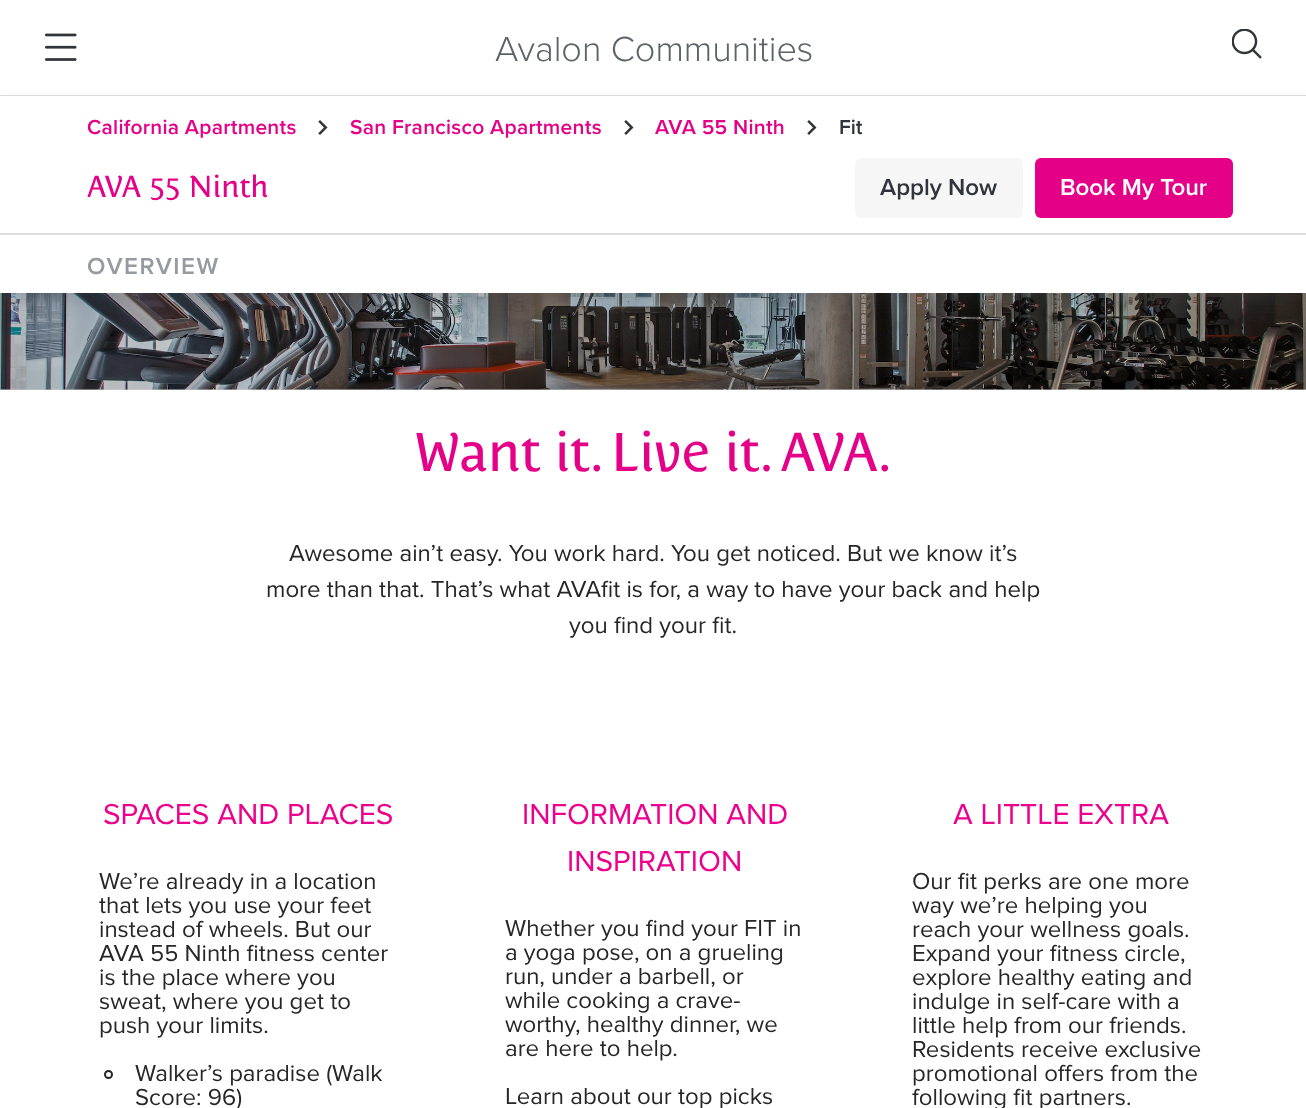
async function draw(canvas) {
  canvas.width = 1306
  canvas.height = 1108
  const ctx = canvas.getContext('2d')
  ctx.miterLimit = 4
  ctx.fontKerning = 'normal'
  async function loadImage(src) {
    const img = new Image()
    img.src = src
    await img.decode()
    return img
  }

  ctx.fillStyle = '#fff'
  ctx.fillRect(0, 0, 1306, 1108)
  ctx.fillStyle = '#ccc'
  ctx.fillRect(0, 389, 1306, 1)
  ctx.fillStyle = '#dcdddf'
  ctx.fillRect(0, 95, 1306, 1)
  ctx.drawImage(await loadImage('image0.png'), 45, 33, 32, 28)
  ctx.font = '300 36px Proxima Nova'
  ctx.fillStyle = '#5d6368'
  ctx.fillText('Avalon Communities', 495, 61)
  ctx.drawImage(await loadImage('image1.png'), 1232, 29, 30, 30)
  ctx.drawImage(await loadImage('image3.png'), 0, 293, 1306, 97)
  ctx.fillStyle = '#41454d33'
  ctx.filter = 'blur(7.5px)'
  ctx.beginPath()
  ctx.rect(0, 104, 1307, 196)
  ctx.fill()
  ctx.filter = 'none'
  ctx.fillStyle = '#fff'
  ctx.fillRect(0, 96, 1306, 197)
  ctx.letterSpacing = '0.25px'
  ctx.font = '600 21px Proxima Nova'
  ctx.fillStyle = '#e40087'
  ctx.fillText('California Apartments', 87, 134)
  ctx.drawImage(await loadImage('image2.png'), 318, 120, 10, 15)
  ctx.fillText('San Francisco Apartments', 350, 134)
  ctx.drawImage(await loadImage('image2.png'), 624, 120, 10, 15)
  ctx.fillText('AVA 55 Ninth', 655, 134)
  ctx.drawImage(await loadImage('image2.png'), 807, 120, 10, 15)
  ctx.letterSpacing = '0px'
  ctx.fillStyle = '#31343a'
  ctx.fillText('Fit', 839, 134)
  ctx.font = '30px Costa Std'
  ctx.fillStyle = '#e40087'
  ctx.fillText('AVA 55 Ninth', 87, 197)
  ctx.fillStyle = '#f6f6f7'
  ctx.beginPath()
  ctx.roundRect(855, 158, 168, 60, 6)
  ctx.fill()
  ctx.font = '600 24px Proxima Nova'
  ctx.fillStyle = '#31343a'
  ctx.fillText('Apply Now', 880, 195)
  ctx.fillStyle = '#e40087'
  ctx.beginPath()
  ctx.roundRect(1035, 158, 198, 60, 6)
  ctx.fill()
  ctx.fillStyle = '#fff'
  ctx.fillText('Book My Tour', 1060, 195)
  ctx.fillStyle = '#dcdddf'
  ctx.fillRect(0, 233, 1306, 2)
  ctx.letterSpacing = '1.5px'
  ctx.fillStyle = '#979aa0'
  ctx.fillText('OVERVIEW', 87, 274)
  ctx.letterSpacing = '0px'
  ctx.font = '54px Costa Std'
  ctx.fillStyle = '#e40087'
  ctx.fillText('Want it. Live it. AVA.', 415, 471)
  ctx.font = '24px Proxima Nova'
  ctx.fillStyle = '#262626'
  ctx.fillText('Awesome ain’t easy. You work hard. You get noticed. But we know it’s', 289, 561)
  ctx.fillText('more than that. That’s what AVAfit is for, a way to have your back and help', 266, 597)
  ctx.fillText('you find your fit.', 569, 633)
  ctx.font = '30px "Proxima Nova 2"'
  ctx.fillStyle = '#ec008c'
  ctx.fillText('SPACES AND PLACES', 103, 824)
  ctx.font = '24px "Proxima Nova 2"'
  ctx.fillStyle = '#262626'
  ctx.fillText('We’re already in a location', 99, 889)
  ctx.fillText('that lets you use your feet', 99, 913)
  ctx.fillText('instead of wheels. But our', 99, 937)
  ctx.fillText('AVA 55 Ninth fitness center', 99, 961)
  ctx.fillText('is the place where you', 99, 985)
  ctx.fillText('sweat, where you get to', 99, 1009)
  ctx.fillText('push your limits.', 99, 1033)
  ctx.beginPath()
  ctx.arc(108.5, 1074.5, 3.5, 0, 2 * Math.PI)
  ctx.strokeStyle = '#262626'
  ctx.lineWidth = 2
  ctx.stroke()
  ctx.fillText('Walker’s paradise (Walk', 135, 1081)
  ctx.fillText('Score: 96)', 135, 1105)
  ctx.font = '30px "Proxima Nova 2"'
  ctx.fillStyle = '#ec008c'
  ctx.fillText('INFORMATION AND', 522, 824)
  ctx.fillText('INSPIRATION', 567, 871)
  ctx.font = '24px "Proxima Nova 2"'
  ctx.fillStyle = '#262626'
  ctx.fillText('Whether you find your FIT in', 505, 936)
  ctx.fillText('a yoga pose, on a grueling', 505, 960)
  ctx.fillText('run, under a barbell, or', 505, 984)
  ctx.fillText('while cooking a crave-', 505, 1008)
  ctx.fillText('worthy, healthy dinner, we', 505, 1032)
  ctx.fillText('are here to help.', 505, 1056)
  ctx.fillText('Learn about our top picks', 505, 1104)
  ctx.font = '30px "Proxima Nova 2"'
  ctx.fillStyle = '#ec008c'
  ctx.fillText('A LITTLE EXTRA', 953, 824)
  ctx.font = '24px "Proxima Nova 2"'
  ctx.fillStyle = '#262626'
  ctx.fillText('Our fit perks are one more', 912, 889)
  ctx.fillText('way we’re helping you', 912, 913)
  ctx.fillText('reach your wellness goals.', 912, 937)
  ctx.fillText('Expand your fitness circle,', 912, 961)
  ctx.fillText('explore healthy eating and', 912, 985)
  ctx.fillText('indulge in self-care with a', 912, 1009)
  ctx.fillText('little help from our friends.', 912, 1033)
  ctx.fillText('Residents receive exclusive', 912, 1057)
  ctx.fillText('promotional offers from the', 912, 1081)
  ctx.fillText('following fit partners.', 912, 1105)
}

draw(document.querySelector('canvas'))
